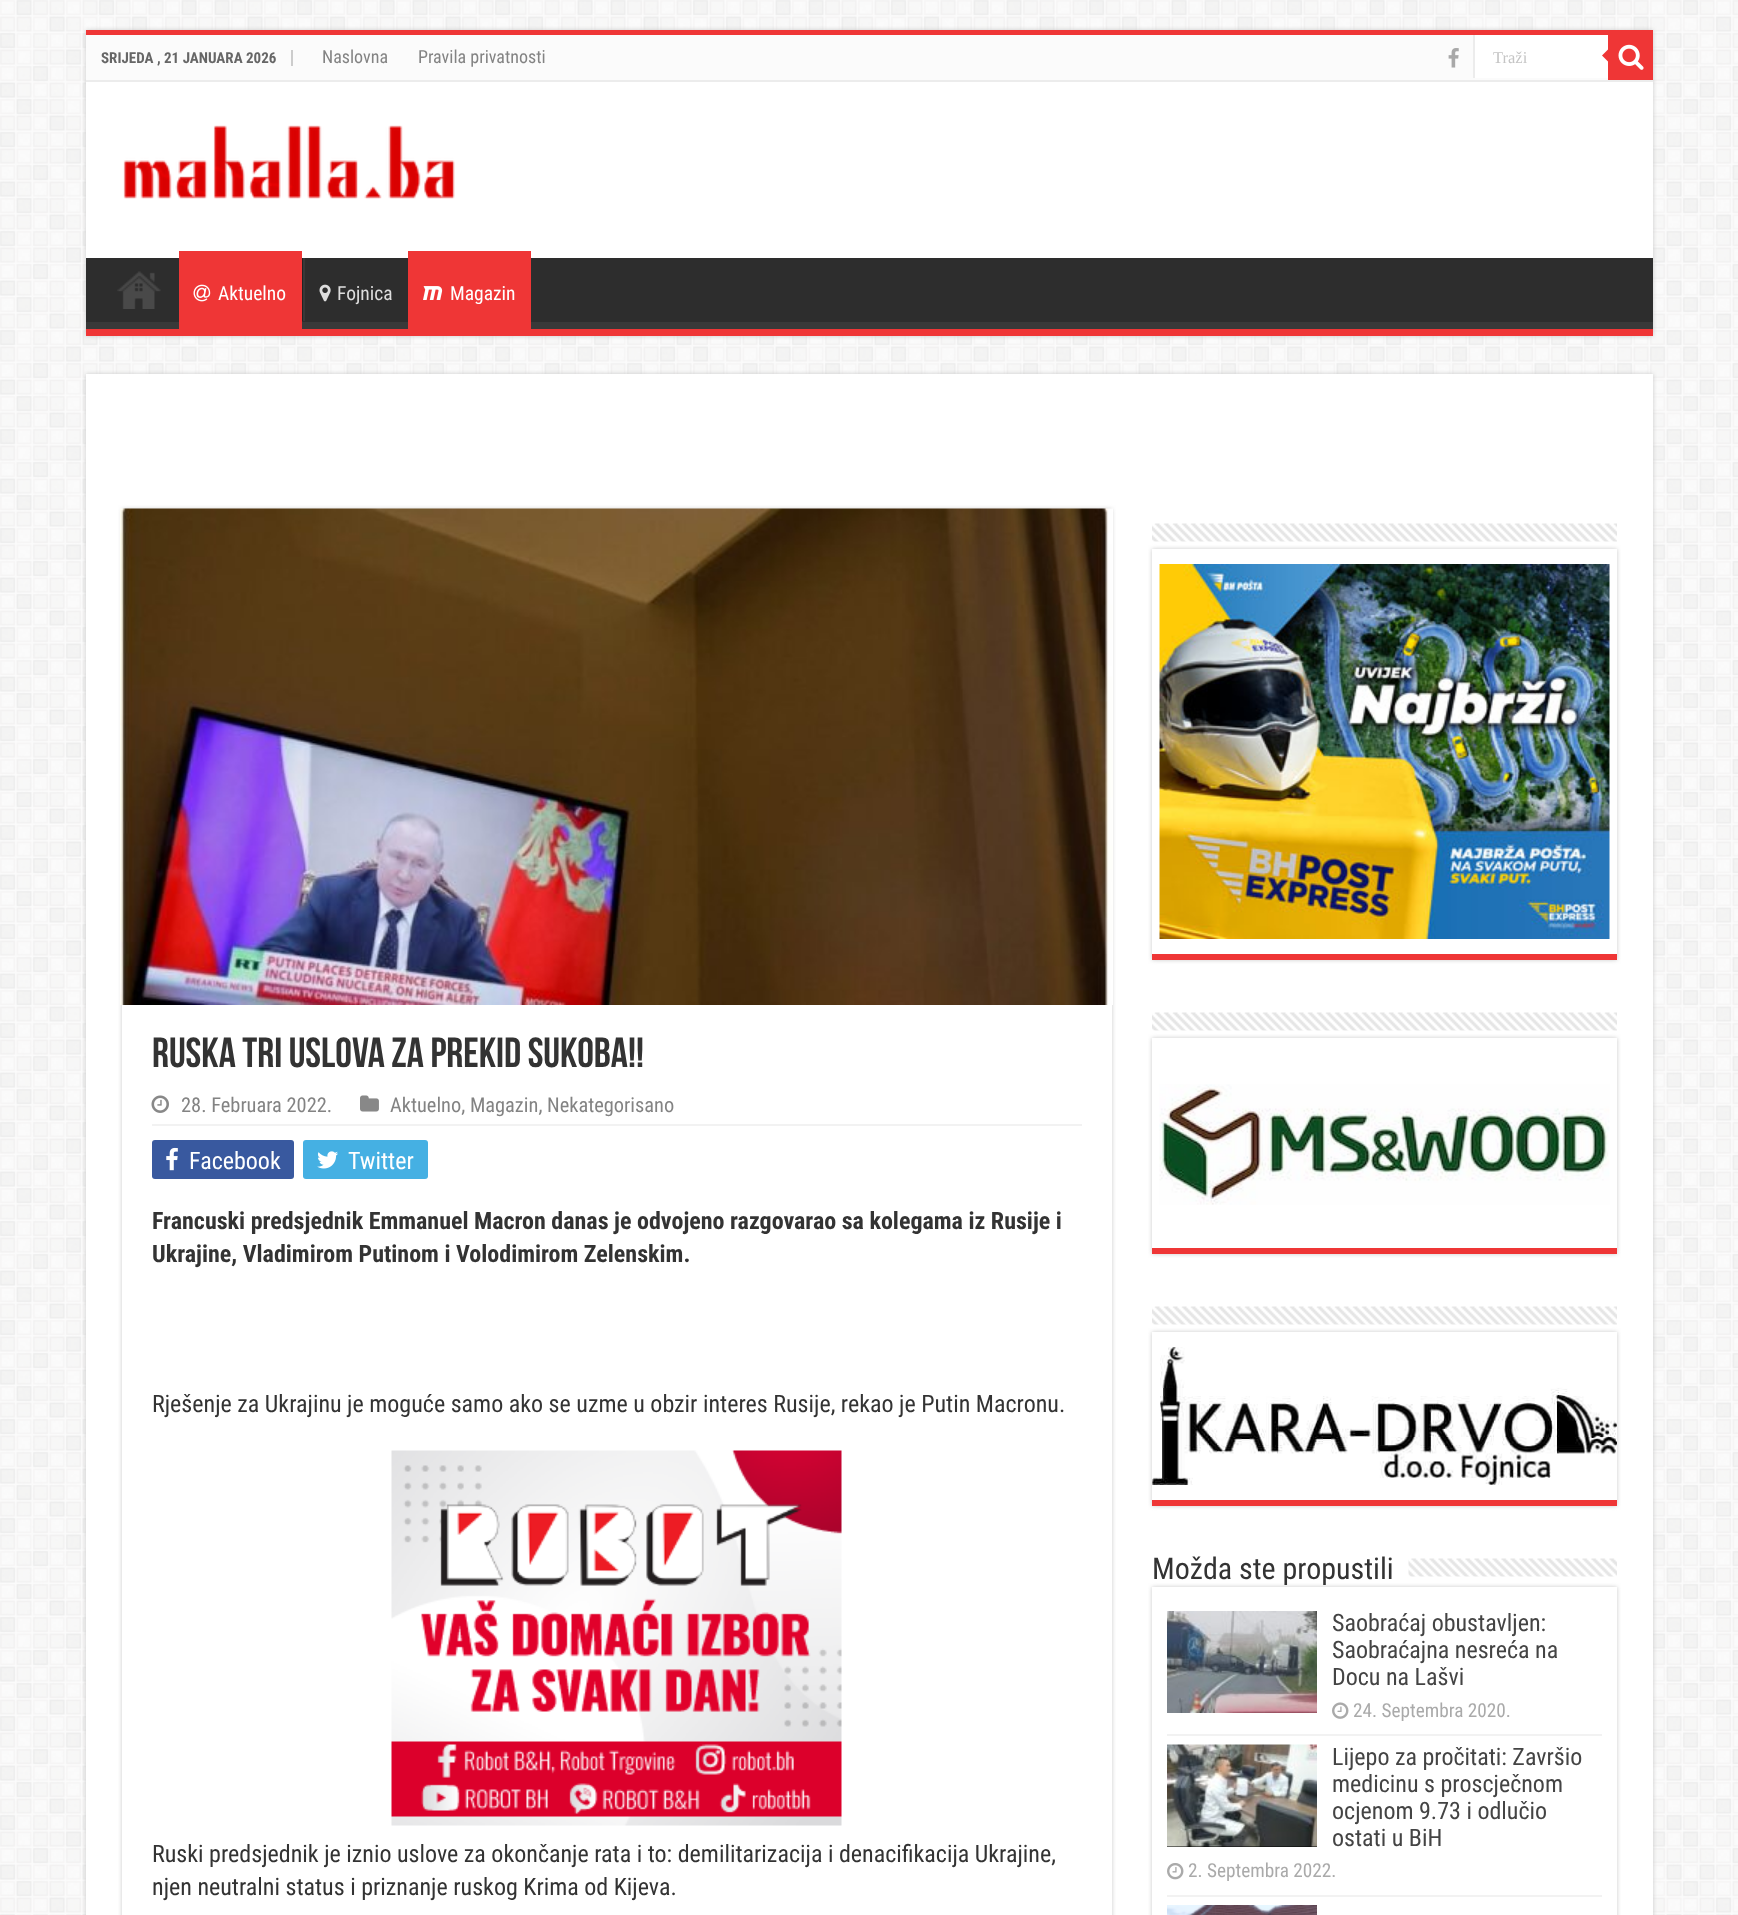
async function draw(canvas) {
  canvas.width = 1738
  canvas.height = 1915
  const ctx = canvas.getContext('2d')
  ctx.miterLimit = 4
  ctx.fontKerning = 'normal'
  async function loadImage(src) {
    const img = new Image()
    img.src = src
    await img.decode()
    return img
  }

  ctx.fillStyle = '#fff'
  ctx.fillRect(0, 0, 1738, 1915)
  ctx.drawImage(await loadImage('image0.png'), 0, 0, 1738, 1915)
  ctx.fillStyle = '#cacaca'
  ctx.filter = 'blur(2px)'
  ctx.beginPath()
  ctx.rect(86, 30, 1567, 306)
  ctx.fill()
  ctx.filter = 'none'
  ctx.fillStyle = '#fff'
  ctx.fillRect(86, 82, 1567, 176)
  ctx.fillStyle = '#ef3636'
  ctx.fillRect(86, 30, 1567, 5)
  ctx.fillStyle = '#fbfbfb'
  ctx.fillRect(86, 35, 1522, 45)
  ctx.fillStyle = '#ececec'
  ctx.fillRect(86, 80, 1567, 2)
  ctx.fillStyle = '#ccc'
  ctx.fillRect(291, 50, 2, 16)
  ctx.font = 'bold 15px Roboto Condensed'
  ctx.fillStyle = '#666'
  ctx.fillText('SRIJEDA , 21 JANUARA 2026', 101, 63)
  ctx.font = '18px Roboto Condensed'
  ctx.fillStyle = '#838383'
  ctx.fillText('Naslovna', 322, 63)
  ctx.fillText('Pravila privatnosti', 418, 63)
  ctx.drawImage(await loadImage('image1.png'), 1448, 48, 11, 20)
  ctx.fillStyle = '#fff'
  ctx.fillRect(1475, 35, 133, 43)
  ctx.fillStyle = '#ececec'
  ctx.fillRect(1473, 35, 2, 43)
  ctx.save()
  ctx.beginPath()
  ctx.rect(1493, 48, 97, 18)
  ctx.clip()
  ctx.font = '16.5px Liberation Serif'
  ctx.fillStyle = '#c5c5c5'
  ctx.fillText('Traži', 1493, 63)
  ctx.restore()
  ctx.fillStyle = '#ef3636'
  ctx.fillRect(1608, 35, 45, 45)
  ctx.drawImage(await loadImage('image2.png'), 1618, 44, 26, 26)
  ctx.beginPath()
  ctx.moveTo(1608, 49.5)
  ctx.lineTo(1608, 61.5)
  ctx.lineTo(1602, 55.5)
  ctx.closePath()
  ctx.fill()
  ctx.drawImage(await loadImage('image3.png'), 123, 125, 332, 74)
  ctx.fillStyle = '#2d2d2d'
  ctx.fillRect(86, 258, 1567, 64)
  ctx.save()
  ctx.beginPath()
  ctx.rect(86, 258, 1567, 71)
  ctx.clip()
  ctx.fillStyle = '#393939'
  ctx.beginPath()
  ctx.moveTo(-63, 110)
  ctx.lineTo(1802, 110)
  ctx.lineTo(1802, 477)
  ctx.lineTo(-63, 477)
  ctx.closePath()
  ctx.moveTo(84, 249)
  ctx.lineTo(1652, 249)
  ctx.bezierCurveTo(1652, 249, 1653, 250, 1653, 250)
  ctx.lineTo(1653, 321)
  ctx.bezierCurveTo(1653, 322, 1652, 322, 1652, 322)
  ctx.lineTo(84, 322)
  ctx.bezierCurveTo(83, 322, 82, 322, 82, 321)
  ctx.lineTo(82, 250)
  ctx.bezierCurveTo(82, 250, 83, 249, 84, 249)
  ctx.closePath()
  ctx.fill('evenodd')
  ctx.restore()
  ctx.fillStyle = '#ef3636'
  ctx.fillRect(86, 329, 1567, 7)
  ctx.drawImage(await loadImage('image4.png'), 117, 271, 44, 38)
  ctx.fillRect(179, 251, 123, 78)
  ctx.drawImage(await loadImage('image5.png'), 193, 284, 18, 18)
  ctx.font = '19.5px Roboto Condensed'
  ctx.fillStyle = '#fff'
  ctx.fillText('Aktuelno', 218, 300)
  ctx.fillStyle = '#222'
  ctx.fillRect(302, 258, 1, 63)
  ctx.fillStyle = '#383838'
  ctx.fillRect(303, 258, 2, 63)
  ctx.drawImage(await loadImage('image6.png'), 319, 284, 12, 18)
  ctx.fillStyle = '#ddd'
  ctx.fillText('Fojnica', 337, 300)
  ctx.fillStyle = '#ef3636'
  ctx.fillRect(408, 251, 123, 78)
  ctx.drawImage(await loadImage('image7.png'), 423, 286, 20, 14)
  ctx.fillStyle = '#fff'
  ctx.fillText('Magazin', 450, 300)
  ctx.fillStyle = '#cacaca'
  ctx.filter = 'blur(2px)'
  ctx.beginPath()
  ctx.rect(86, 374, 1567, 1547)
  ctx.fill()
  ctx.filter = 'none'
  ctx.fillStyle = '#fff'
  ctx.fillRect(86, 374, 1567, 1541)
  ctx.fillStyle = '#cacaca'
  ctx.filter = 'blur(2px)'
  ctx.beginPath()
  ctx.rect(122, 509, 990, 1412)
  ctx.fill()
  ctx.filter = 'none'
  ctx.fillStyle = '#fff'
  ctx.fillRect(122, 1005, 990, 910)
  ctx.drawImage(await loadImage('image8.png'), 120, 508, 993, 497)
  ctx.font = 'bold 42px Bebas Neue'
  ctx.fillStyle = '#333'
  ctx.fillText('Ruska tri uslova za prekid sukoba!!', 152, 1067)
  ctx.fillStyle = '#f2f2f2'
  ctx.fillRect(152, 1124, 930, 2)
  ctx.drawImage(await loadImage('image9.png'), 151, 1095, 18, 18)
  ctx.font = '20.4px Roboto Condensed'
  ctx.fillStyle = '#838383'
  ctx.fillText('28. Februara 2022.', 181, 1112)
  ctx.drawImage(await loadImage('image10.png'), 360, 1095, 19, 17)
  ctx.fillText('Aktuelno, Magazin, Nekategorisano', 390, 1112)
  ctx.fillStyle = '#39599f'
  ctx.beginPath()
  ctx.roundRect(152, 1140, 142, 39, 3)
  ctx.fill()
  ctx.drawImage(await loadImage('image11.png'), 166, 1147, 12, 24)
  ctx.font = '24px Roboto Condensed'
  ctx.fillStyle = '#fff'
  ctx.fillText('Facebook', 189, 1169)
  ctx.fillStyle = '#45b0e3'
  ctx.beginPath()
  ctx.roundRect(303, 1140, 125, 39, 3)
  ctx.fill()
  ctx.drawImage(await loadImage('image12.png'), 317, 1151, 21, 18)
  ctx.fillStyle = '#fff'
  ctx.fillText('Twitter', 348, 1169)
  ctx.font = 'bold 24px Roboto Condensed'
  ctx.fillStyle = '#333'
  ctx.fillText('Francuski predsjednik Emmanuel Macron danas je odvojeno razgovarao sa kolegama iz Rusije i', 152, 1229)
  ctx.fillText('Ukrajine, Vladimirom Putinom i Volodimirom Zelenskim.', 152, 1262)
  ctx.font = '24px Roboto Condensed'
  ctx.fillText('Rješenje za Ukrajinu je moguće samo ako se uzme u obzir interes Rusije, rekao je Putin Macronu.', 152, 1412)
  ctx.drawImage(await loadImage('image13.png'), 391, 1450, 451, 376)
  ctx.fillText('Ruski predsjednik je iznio uslove za okončanje rata i to: demilitarizacija i denacifikacija Ukrajine,', 152, 1862)
  ctx.fillText('njen neutralni status i priznanje ruskog Krima od Kijeva.', 152, 1895)
  ctx.drawImage(await loadImage('image14.png'), 1152, 523, 465, 19)
  ctx.save()
  ctx.beginPath()
  ctx.moveTo(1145, 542)
  ctx.lineTo(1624, 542)
  ctx.lineTo(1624, 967)
  ctx.lineTo(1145, 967)
  ctx.closePath()
  ctx.moveTo(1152, 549)
  ctx.lineTo(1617, 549)
  ctx.lineTo(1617, 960)
  ctx.lineTo(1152, 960)
  ctx.closePath()
  ctx.clip('evenodd')
  ctx.fillStyle = '#cacaca'
  ctx.filter = 'blur(2px)'
  ctx.beginPath()
  ctx.rect(1152, 549, 465, 411)
  ctx.fill()
  ctx.filter = 'none'
  ctx.restore()
  ctx.fillStyle = '#ef3636'
  ctx.fillRect(1152, 954, 465, 6)
  ctx.drawImage(await loadImage('image15.png'), 1159, 564, 451, 375)
  ctx.drawImage(await loadImage('image16.png'), 1152, 1012, 465, 19)
  ctx.save()
  ctx.beginPath()
  ctx.moveTo(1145, 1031)
  ctx.lineTo(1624, 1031)
  ctx.lineTo(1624, 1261)
  ctx.lineTo(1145, 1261)
  ctx.closePath()
  ctx.moveTo(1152, 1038)
  ctx.lineTo(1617, 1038)
  ctx.lineTo(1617, 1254)
  ctx.lineTo(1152, 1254)
  ctx.closePath()
  ctx.clip('evenodd')
  ctx.fillStyle = '#cacaca'
  ctx.filter = 'blur(2px)'
  ctx.beginPath()
  ctx.rect(1152, 1038, 465, 216)
  ctx.fill()
  ctx.filter = 'none'
  ctx.restore()
  ctx.fillRect(1152, 1248, 465, 6)
  ctx.drawImage(await loadImage('image17.png'), 1159, 1084, 451, 121)
  ctx.drawImage(await loadImage('image16.png'), 1152, 1306, 465, 19)
  ctx.save()
  ctx.beginPath()
  ctx.moveTo(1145, 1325)
  ctx.lineTo(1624, 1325)
  ctx.lineTo(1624, 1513)
  ctx.lineTo(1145, 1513)
  ctx.closePath()
  ctx.moveTo(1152, 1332)
  ctx.lineTo(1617, 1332)
  ctx.lineTo(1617, 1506)
  ctx.lineTo(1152, 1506)
  ctx.closePath()
  ctx.clip('evenodd')
  ctx.fillStyle = '#cacaca'
  ctx.filter = 'blur(2px)'
  ctx.beginPath()
  ctx.rect(1152, 1332, 465, 174)
  ctx.fill()
  ctx.filter = 'none'
  ctx.restore()
  ctx.fillRect(1152, 1500, 465, 6)
  ctx.drawImage(await loadImage('image18.png'), 1152, 1347, 465, 138)
  ctx.save()
  ctx.beginPath()
  ctx.moveTo(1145, 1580)
  ctx.lineTo(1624, 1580)
  ctx.lineTo(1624, 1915)
  ctx.lineTo(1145, 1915)
  ctx.closePath()
  ctx.moveTo(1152, 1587)
  ctx.lineTo(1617, 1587)
  ctx.lineTo(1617, 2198)
  ctx.lineTo(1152, 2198)
  ctx.closePath()
  ctx.clip('evenodd')
  ctx.fillStyle = '#cacaca'
  ctx.filter = 'blur(2px)'
  ctx.beginPath()
  ctx.rect(1152, 1587, 465, 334)
  ctx.fill()
  ctx.filter = 'none'
  ctx.restore()
  ctx.font = '30px Roboto Condensed'
  ctx.fillStyle = '#333'
  ctx.fillText('Možda ste propustili', 1152, 1579)
  ctx.drawImage(await loadImage('image19.png'), 1408, 1558, 209, 19)
  ctx.fillStyle = '#f2f2f2'
  ctx.fillRect(1167, 1734, 435, 2)
  ctx.drawImage(await loadImage('image20.png'), 1167, 1611, 150, 102)
  ctx.font = '24px Roboto Condensed'
  ctx.fillStyle = '#444'
  ctx.fillText('Saobraćaj obustavljen:', 1332, 1631)
  ctx.fillText('Saobraćajna nesreća na', 1332, 1658)
  ctx.fillText('Docu na Lašvi', 1332, 1685)
  ctx.drawImage(await loadImage('image21.png'), 1332, 1702, 17, 17)
  ctx.font = '19.25px Roboto Condensed'
  ctx.fillStyle = '#aaa'
  ctx.fillText('24. Septembra 2020.', 1353, 1717)
  ctx.fillStyle = '#f2f2f2'
  ctx.fillRect(1167, 1895, 435, 2)
  ctx.fillStyle = '#000'
  ctx.fillRect(1167, 1846, 150, 1)
  ctx.drawImage(await loadImage('image22.png'), 1167, 1744, 150, 103)
  ctx.font = '24px Roboto Condensed'
  ctx.fillStyle = '#444'
  ctx.fillText('Lijepo za pročitati: Završio', 1332, 1765)
  ctx.fillText('medicinu s proscječnom', 1332, 1792)
  ctx.fillText('ocjenom 9.73 i odlučio', 1332, 1819)
  ctx.fillText('ostati u BiH', 1332, 1846)
  ctx.drawImage(await loadImage('image23.png'), 1167, 1863, 17, 17)
  ctx.font = '19.25px Roboto Condensed'
  ctx.fillStyle = '#aaa'
  ctx.fillText('2. Septembra 2022.', 1188, 1877)
  ctx.drawImage(await loadImage('image24.png'), 1167, 1905, 150, 10)
}

draw(document.querySelector('canvas'))
